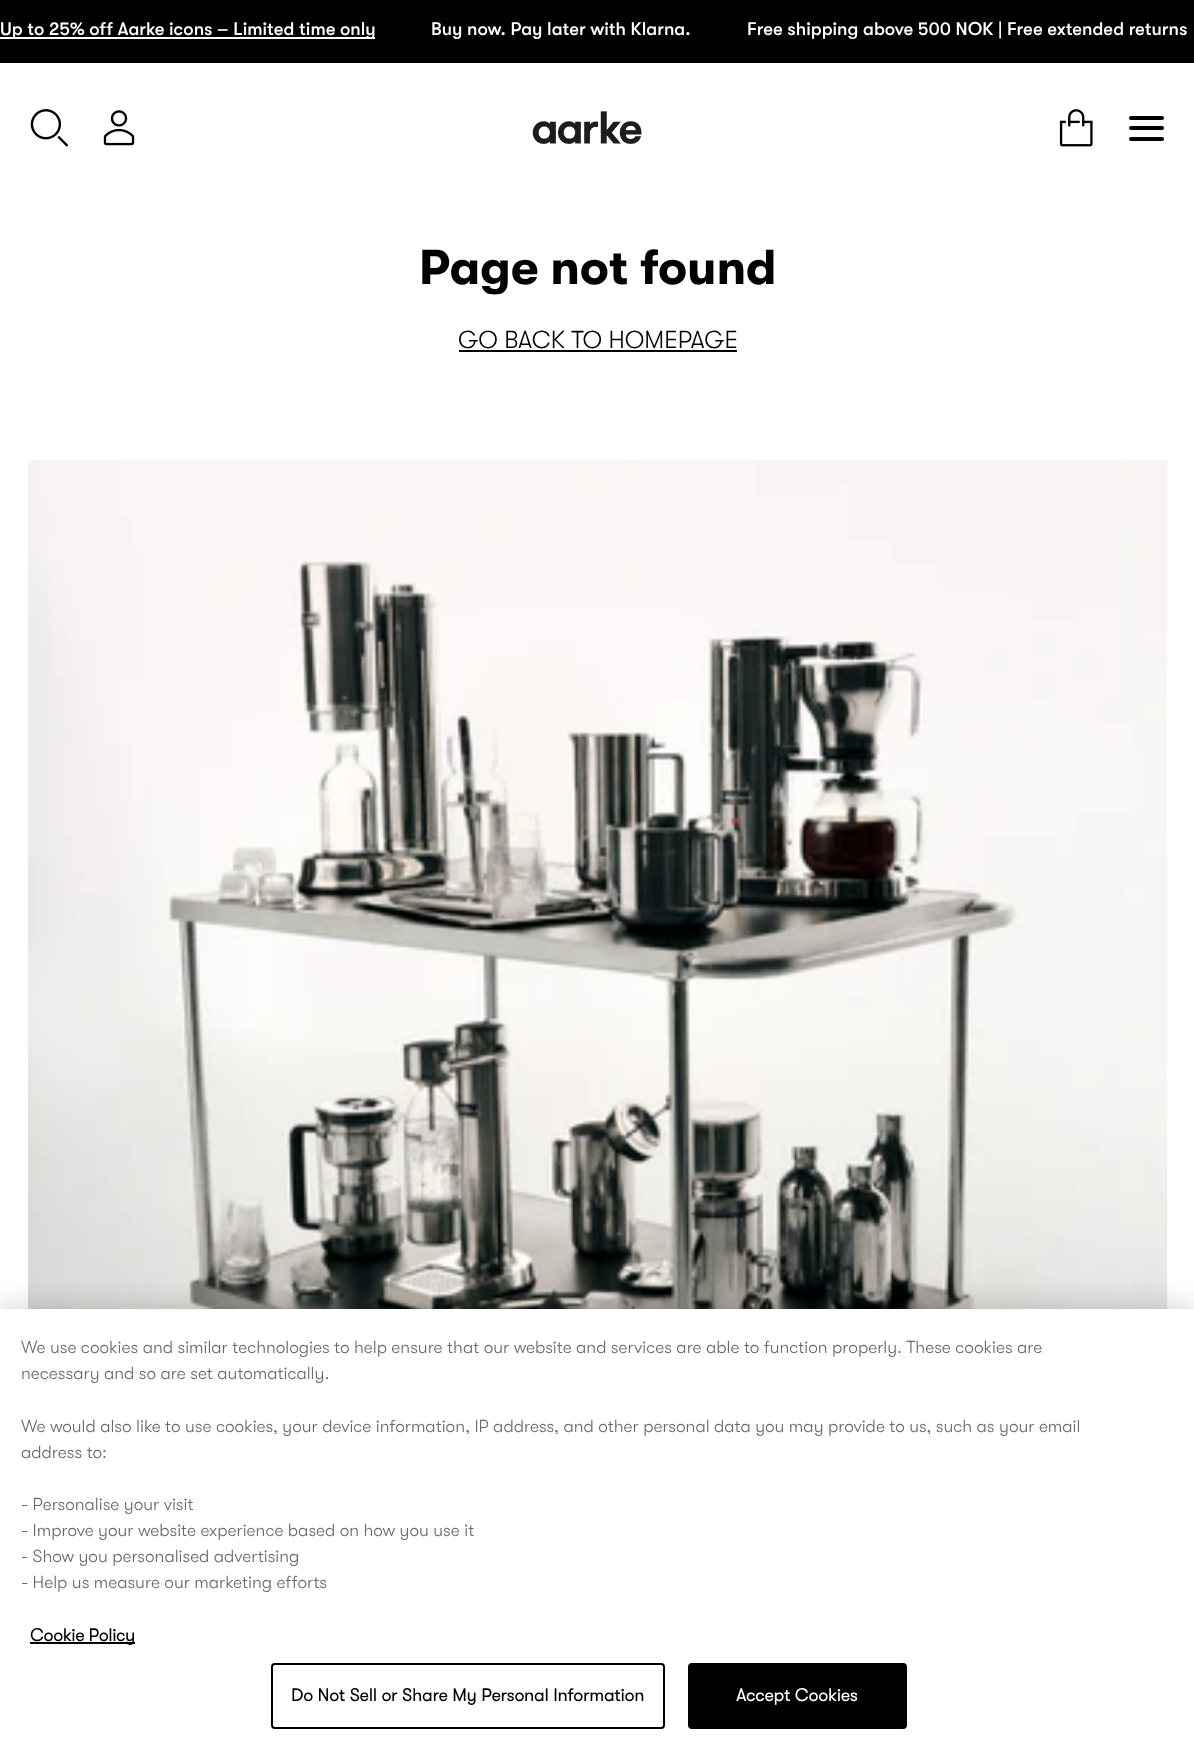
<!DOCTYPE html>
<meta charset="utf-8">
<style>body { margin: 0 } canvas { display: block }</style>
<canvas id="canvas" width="1194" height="1752"></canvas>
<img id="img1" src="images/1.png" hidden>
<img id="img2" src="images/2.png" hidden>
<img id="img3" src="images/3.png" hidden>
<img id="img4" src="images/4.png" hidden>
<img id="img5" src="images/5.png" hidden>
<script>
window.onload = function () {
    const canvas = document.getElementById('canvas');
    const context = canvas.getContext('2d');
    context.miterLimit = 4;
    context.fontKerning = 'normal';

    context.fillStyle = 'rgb(255, 255, 255)';
    context.fillRect(0, 0, 1194, 1752);
    context.fillStyle = 'rgb(0, 0, 0)';
    context.fillRect(0, 0, 1194, 63);
    context.fillStyle = 'rgb(255, 255, 255)';
    context.fillRect(0, 37, 375, 2);
    context.drawImage(document.getElementById('img1'), 30, 109, 38, 38);
    context.drawImage(document.getElementById('img2'), 103, 110, 32, 36);
    context.drawImage(document.getElementById('img3'), 532, 111, 110, 33);
    context.drawImage(document.getElementById('img4'), 1059, 109, 34, 38);
    context.fillStyle = 'rgb(0, 0, 0)';
    context.beginPath();
    context.roundRect(1129, 116, 35, 4, 2);
    context.fill();
    context.beginPath();
    context.roundRect(1129, 126, 35, 4, 2);
    context.fill();
    context.beginPath();
    context.roundRect(1129, 137, 35, 4, 2);
    context.fill();
    context.fillRect(459, 350, 278, 2);
    context.drawImage(document.getElementById('img5'), 28, 460, 1140, 849);
    context.fillStyle = 'rgba(0, 0, 0, 0.2)';
    context.filter = 'blur(16px)';
    context.beginPath();
    context.rect(0, 1309, 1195, 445);
    context.fill();
    context.filter = 'none';
    context.fillStyle = 'rgb(255, 255, 255)';
    context.fillRect(0, 1309, 1194, 443);
    context.fillStyle = 'rgb(0, 0, 0)';
    context.fillRect(30, 1642, 105, 2);
    context.beginPath();
    context.roundRect(272, 1664, 392, 64, 3);
    context.strokeStyle = 'rgb(0, 0, 0)';
    context.lineWidth = 2;
    context.stroke();
    context.beginPath();
    context.roundRect(689, 1664, 217, 64, 3);
    context.fill();
    context.stroke();
    context.font = '500 18.4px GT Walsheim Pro';
    context.fillStyle = 'rgb(255, 255, 255)';
    context.fillText('Up to 25% off Aarke icons – Limited time only', 0, 35);
    context.fillText('Buy now. Pay later with Klarna.', 431, 35);
    context.fillText('Free shipping above 500 NOK | Free extended returns', 747, 35);
    context.font = 'bold 49px GT Walsheim Pro';
    context.fillStyle = 'rgb(0, 0, 0)';
    context.fillText('Page not found', 419, 284);
    context.font = '300 24.5px GT Walsheim Pro';
    context.fillText('GO BACK TO HOMEPAGE', 458, 348);
    context.font = '300 17.43px GT Walsheim Pro';
    context.fillStyle = 'rgb(105, 105, 105)';
    context.fillText('We use cookies and similar technologies to help ensure that our website and services are able to function properly. These cookies are', 21, 1353);
    context.fillText('necessary and so are set automatically.', 21, 1379);
    context.fillText('We would also like to use cookies, your device information, IP address, and other personal data you may provide to us, such as your email', 21, 1432);
    context.fillText('address to:', 21, 1458);
    context.fillText('- Personalise your visit', 21, 1510);
    context.fillText('- Improve your website experience based on how you use it', 21, 1536);
    context.fillText('- Show you personalised advertising', 21, 1562);
    context.fillText('- Help us measure our marketing efforts', 21, 1588);
    context.font = 'bold 17.43px "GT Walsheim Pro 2"';
    context.fillStyle = 'rgb(0, 0, 0)';
    context.fillText('Cookie Policy', 30, 1641);
    context.letterSpacing = '0.15px';
    context.fillText('Do Not Sell or Share My Personal Information', 291, 1701);
    context.fillStyle = 'rgb(255, 255, 255)';
    context.fillText('Accept Cookies', 736, 1701);
};
</script>
